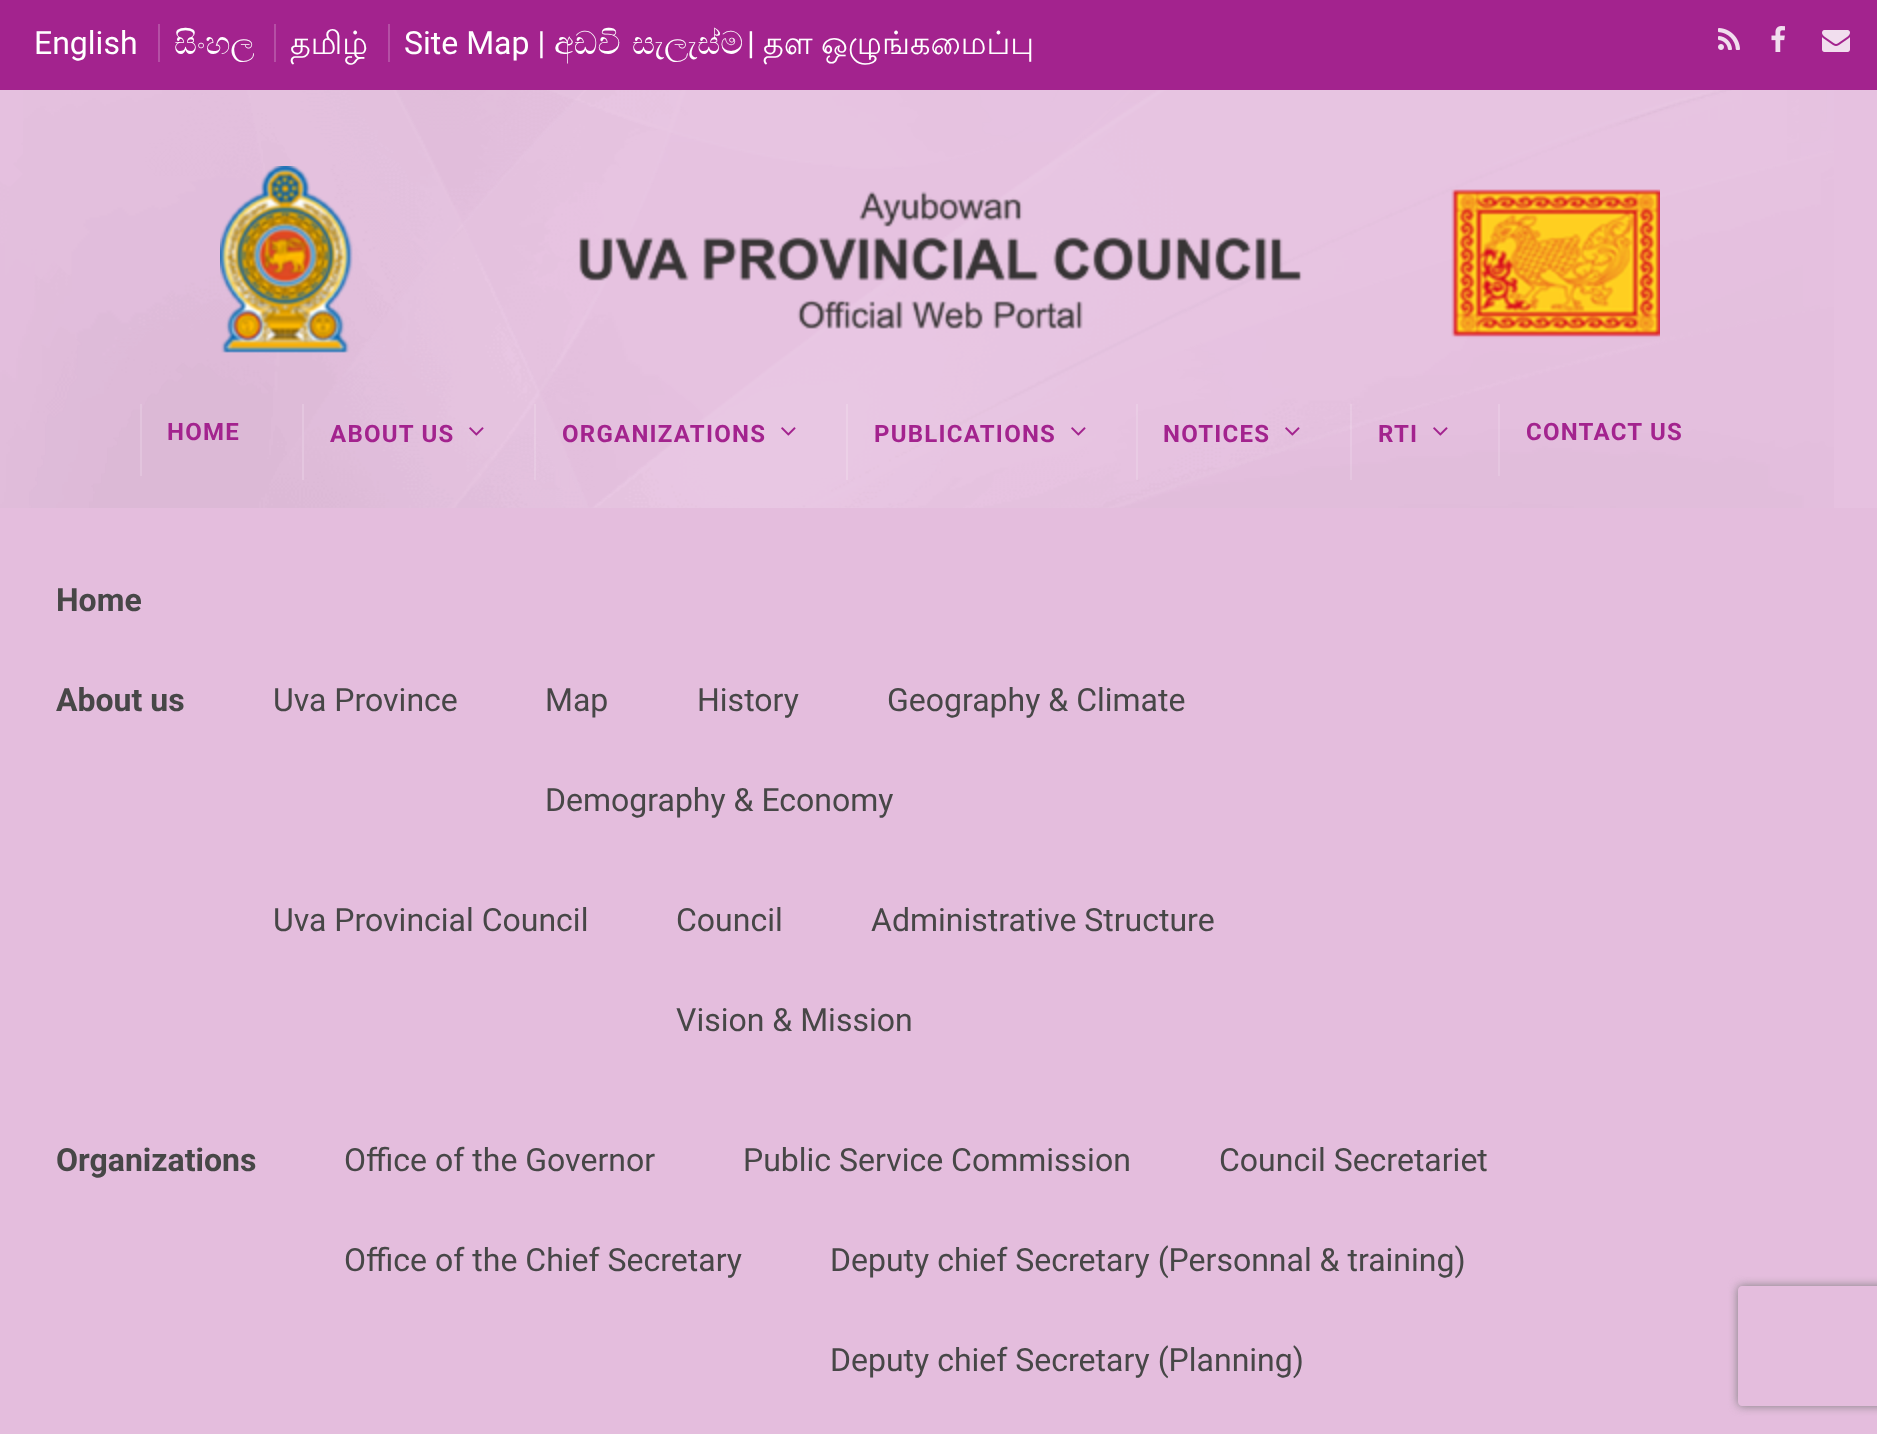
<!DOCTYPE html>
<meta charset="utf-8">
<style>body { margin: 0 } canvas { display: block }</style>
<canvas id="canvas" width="1877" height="1434"></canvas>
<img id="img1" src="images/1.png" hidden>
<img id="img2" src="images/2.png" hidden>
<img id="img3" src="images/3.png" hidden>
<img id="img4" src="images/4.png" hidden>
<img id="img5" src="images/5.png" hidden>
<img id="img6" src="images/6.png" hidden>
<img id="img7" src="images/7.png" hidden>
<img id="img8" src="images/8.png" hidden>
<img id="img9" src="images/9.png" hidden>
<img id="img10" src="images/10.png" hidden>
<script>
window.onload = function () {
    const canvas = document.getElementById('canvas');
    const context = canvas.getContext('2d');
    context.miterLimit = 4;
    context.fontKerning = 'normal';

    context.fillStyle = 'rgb(163, 35, 142)';
    context.fillRect(0, 0, 1877, 1434);
    context.fillStyle = 'rgb(181, 79, 165)';
    context.fillRect(158, 24, 2, 38);
    context.fillRect(274, 24, 2, 38);
    context.fillRect(388, 24, 2, 38);
    context.drawImage(document.getElementById('img1'), 1718, 28, 22, 22);
    context.drawImage(document.getElementById('img2'), 1771, 26, 14, 26);
    context.drawImage(document.getElementById('img3'), 1822, 30, 28, 22);
    context.fillStyle = 'rgb(230, 193, 224)';
    context.fillRect(0, 90, 1877, 418);
    context.fillStyle = 'rgb(234, 202, 229)';
    context.fillRect(1498, 404, 2, 72);
    context.drawImage(document.getElementById('img4'), 0, 90, 1834, 418);
    context.drawImage(document.getElementById('img5'), 220, 166, 1440, 187);
    context.fillStyle = 'rgb(226, 196, 221)';
    context.fillRect(140, 404, 2, 72);
    context.fillStyle = 'rgb(228, 198, 223)';
    context.fillRect(302, 404, 2, 76);
    context.drawImage(document.getElementById('img6'), 469, 427, 15, 9);
    context.fillStyle = 'rgba(255, 255, 255, 0.15)';
    context.fillRect(534, 404, 2, 76);
    context.drawImage(document.getElementById('img7'), 781, 427, 15, 9);
    context.fillStyle = 'rgb(236, 208, 231)';
    context.fillRect(846, 404, 2, 76);
    context.drawImage(document.getElementById('img8'), 1071, 427, 15, 9);
    context.fillStyle = 'rgba(255, 255, 255, 0.15)';
    context.fillRect(1136, 404, 2, 76);
    context.drawImage(document.getElementById('img9'), 1285, 427, 15, 9);
    context.fillRect(1350, 404, 2, 76);
    context.drawImage(document.getElementById('img10'), 1433, 427, 15, 9);
    context.fillStyle = 'rgb(228, 189, 221)';
    context.fillRect(0, 508, 1877, 926);
    context.save();
    context.beginPath();
    context.moveTo(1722, 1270);
    context.lineTo(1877, 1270);
    context.lineTo(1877, 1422);
    context.lineTo(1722, 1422);
    context.closePath();
    context.moveTo(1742, 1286);
    context.lineTo(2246, 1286);
    context.bezierCurveTo(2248, 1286, 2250, 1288, 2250, 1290);
    context.lineTo(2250, 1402);
    context.bezierCurveTo(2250, 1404, 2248, 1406, 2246, 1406);
    context.lineTo(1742, 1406);
    context.bezierCurveTo(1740, 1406, 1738, 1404, 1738, 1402);
    context.lineTo(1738, 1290);
    context.bezierCurveTo(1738, 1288, 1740, 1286, 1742, 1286);
    context.closePath();
    context.clip('evenodd');
    context.fillStyle = 'rgb(128, 128, 128)';
    context.filter = 'blur(5px)';
    context.beginPath();
    context.roundRect(1738, 1286, 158, 120, 4);
    context.fill();
    context.filter = 'none';
    context.restore();
    context.font = '32px Roboto';
    context.fillStyle = 'rgb(255, 255, 255)';
    context.fillText('English', 34, 54);
    context.font = '32px FreeSerif';
    context.fillText('සිංහල', 174, 54);
    context.font = '32px Lohit Tamil';
    context.fillText('தமிழ்', 290, 54);
    context.font = '32px Roboto';
    context.fillText('Site Map |', 404, 54);
    context.font = '32px FreeSerif';
    context.fillText('අඩවි', 554, 54);
    context.fillText('සැලැස්ම', 632, 54);
    context.font = '32px Roboto';
    context.fillText('|', 747, 54);
    context.font = '32px Lohit Tamil';
    context.fillText('தள', 763, 54);
    context.fillText('ஒழுங்கமைப்பு', 821, 54);
    context.letterSpacing = '1.25px';
    context.font = 'bold 24px Roboto';
    context.fillStyle = 'rgb(163, 35, 142)';
    context.fillText('HOME', 167, 440);
    context.fillText('ABOUT US', 330, 442);
    context.fillText('ORGANIZATIONS', 562, 442);
    context.fillText('PUBLICATIONS', 874, 442);
    context.fillText('NOTICES', 1163, 442);
    context.fillText('RTI', 1378, 442);
    context.fillText('CONTACT US', 1526, 440);
    context.letterSpacing = '0px';
    context.font = 'bold 32px Roboto';
    context.fillStyle = 'rgb(71, 71, 71)';
    context.fillText('Home', 56, 611);
    context.fillText('About us', 56, 711);
    context.font = '32px Roboto';
    context.fillText('Uva Province', 273, 711);
    context.fillText('Map', 545, 711);
    context.fillText('History', 697, 711);
    context.fillText('Geography & Climate', 887, 711);
    context.fillText('Demography & Economy', 545, 811);
    context.fillText('Uva Provincial Council', 273, 931);
    context.fillText('Council', 676, 931);
    context.fillText('Administrative Structure', 871, 931);
    context.fillText('Vision & Mission', 676, 1031);
    context.font = 'bold 32px Roboto';
    context.fillText('Organizations', 56, 1171);
    context.font = '32px Roboto';
    context.fillText('Office of the Governor', 344, 1171);
    context.fillText('Public Service Commission', 743, 1171);
    context.fillText('Council Secretariet', 1219, 1171);
    context.fillText('Office of the Chief Secretary', 344, 1271);
    context.fillText('Deputy chief Secretary (Personnal & training)', 830, 1271);
    context.fillText('Deputy chief Secretary (Planning)', 830, 1371);
};
</script>
